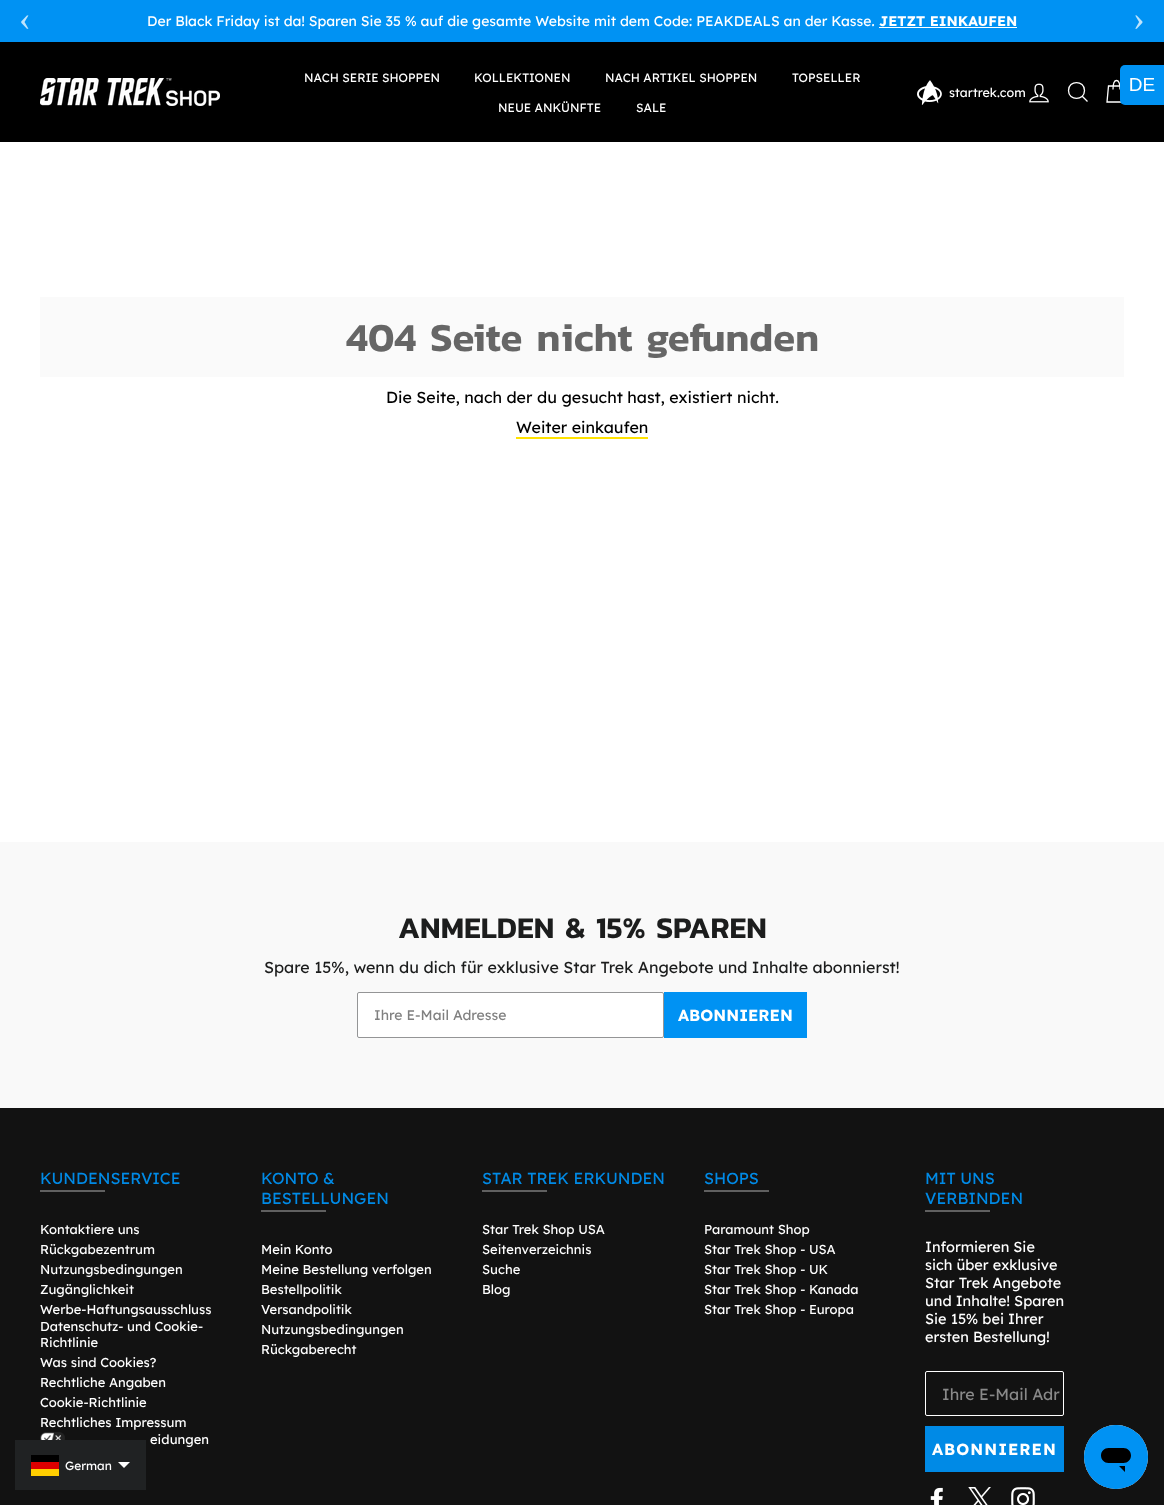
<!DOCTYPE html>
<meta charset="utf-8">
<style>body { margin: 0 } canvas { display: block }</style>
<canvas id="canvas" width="1164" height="1505"></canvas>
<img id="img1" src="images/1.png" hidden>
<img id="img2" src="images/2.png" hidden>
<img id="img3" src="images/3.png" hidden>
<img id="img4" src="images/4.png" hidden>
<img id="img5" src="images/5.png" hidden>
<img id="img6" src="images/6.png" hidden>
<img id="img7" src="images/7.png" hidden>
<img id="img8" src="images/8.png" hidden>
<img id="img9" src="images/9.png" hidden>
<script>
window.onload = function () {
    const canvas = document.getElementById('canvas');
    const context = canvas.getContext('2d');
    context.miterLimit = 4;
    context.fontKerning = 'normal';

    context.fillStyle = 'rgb(255, 255, 255)';
    context.fillRect(0, 0, 1164, 1505);
    context.fillStyle = 'rgb(0, 146, 243)';
    context.fillRect(0, 0, 1164, 42);
    context.fillStyle = 'rgb(255, 255, 255)';
    context.fillRect(879, 27, 138, 1);
    context.fillStyle = 'rgb(0, 0, 0)';
    context.fillRect(0, 42, 1164, 100);
    context.drawImage(document.getElementById('img1'), 40, 78, 180, 28);
    context.drawImage(document.getElementById('img2'), 917, 80, 25, 25);
    context.drawImage(document.getElementById('img3'), 1029, 83, 20, 20);
    context.beginPath();
    context.moveTo(1084.5, 90.5);
    context.bezierCurveTo(1084.5, 101, 1068.5, 101, 1068.5, 90.5);
    context.bezierCurveTo(1068.5, 80, 1084.5, 80, 1084.5, 90.5);
    context.closePath();
    context.moveTo(1087.5, 101.5);
    context.lineTo(1082.5, 96.5);
    context.strokeStyle = 'rgb(255, 255, 255)';
    context.lineWidth = 1.3;
    context.stroke();
    context.beginPath();
    context.moveTo(1113, 89.5);
    context.bezierCurveTo(1113, 77.5, 1120, 77.5, 1120, 89.5);
    context.moveTo(1108.5, 86);
    context.lineTo(1124.5, 86);
    context.lineTo(1126, 102);
    context.lineTo(1107, 102);
    context.closePath();
    context.stroke();
    context.fillStyle = 'rgb(250, 250, 250)';
    context.fillRect(40, 297, 1084, 80);
    context.fillStyle = 'rgb(255, 226, 0)';
    context.fillRect(516, 437, 132, 2);
    context.fillStyle = 'rgb(249, 249, 249)';
    context.fillRect(0, 842, 1164, 266);
    context.fillStyle = 'rgb(255, 255, 255)';
    context.beginPath();
    context.roundRect(357.5, 992.5, 306, 45, 1.5);
    context.fill();
    context.strokeStyle = 'rgb(148, 149, 150)';
    context.lineWidth = 1;
    context.stroke();
    context.fillStyle = 'rgb(0, 146, 243)';
    context.fillRect(664, 992, 143, 46);
    context.fillStyle = 'rgb(18, 18, 18)';
    context.fillRect(0, 1108, 1164, 397);
    context.fillStyle = 'rgb(96, 96, 96)';
    context.fillRect(40, 1190, 65, 2);
    context.drawImage(document.getElementById('img4'), 40, 1432, 25, 8);
    context.fillRect(261, 1210, 65, 2);
    context.fillRect(482, 1190, 65, 2);
    context.fillRect(704, 1190, 65, 2);
    context.fillRect(925, 1210, 65, 2);
    context.beginPath();
    context.roundRect(925.5, 1371.5, 138, 44, 1.5);
    context.strokeStyle = 'rgb(255, 255, 255)';
    context.stroke();
    context.fillStyle = 'rgb(0, 138, 230)';
    context.fillRect(925, 1426, 139, 46);
    context.drawImage(document.getElementById('img5'), 930, 1487, 13, 18);
    context.drawImage(document.getElementById('img6'), 968, 1487, 23, 18);
    context.drawImage(document.getElementById('img7'), 1011, 1487, 24, 18);
    context.drawImage(document.getElementById('img8'), 1120, 65, 44, 40);
    context.fillStyle = 'rgb(32, 34, 35)';
    context.fillRect(15, 1440, 131, 50);
    context.fillStyle = 'rgb(255, 206, 0)';
    context.fillRect(31, 1469, 28, 7);
    context.fillStyle = 'rgb(0, 0, 0)';
    context.fillRect(31, 1455, 28, 7);
    context.fillStyle = 'rgb(221, 0, 0)';
    context.fillRect(31, 1462, 28, 7);
    context.fillStyle = 'rgb(255, 255, 255)';
    context.beginPath();
    context.moveTo(118, 1462);
    context.lineTo(130, 1462);
    context.lineTo(124, 1468);
    context.closePath();
    context.fill();
    context.drawImage(document.getElementById('img9'), 1084, 1425, 64, 64);
    context.font = '35px Liberation Serif';
    context.fillStyle = 'rgb(191, 228, 252)';
    context.fillText('‹', 19, 30);
    context.font = '14px Lexend';
    context.fillStyle = 'rgb(255, 255, 255)';
    context.fillText('Der Black Friday ist da! Sparen Sie 35 % auf die gesamte Website mit dem Code: PEAKDEALS an der Kasse.', 147, 26);
    context.font = 'bold 14px Lexend';
    context.fillText('JETZT EINKAUFEN', 879, 26);
    context.font = '35px Liberation Serif';
    context.fillStyle = 'rgb(191, 228, 252)';
    context.fillText('›', 1133, 30);
    context.font = '12px Lexend';
    context.fillStyle = 'rgb(255, 255, 255)';
    context.fillText('NACH SERIE SHOPPEN', 304, 82);
    context.fillText('KOLLEKTIONEN', 474, 82);
    context.fillText('NACH ARTIKEL SHOPPEN', 605, 82);
    context.fillText('TOPSELLER', 792, 82);
    context.fillText('NEUE ANKÜNFTE', 498, 112);
    context.fillText('SALE', 636, 112);
    context.font = '12.5px Lexend';
    context.fillText('startrek.com', 949, 97);
    context.font = '600 40px Kanit';
    context.fillStyle = 'rgb(102, 102, 102)';
    context.fillText('404 Seite nicht gefunden', 346, 351);
    context.font = '16px Lexend';
    context.fillStyle = 'rgb(0, 0, 0)';
    context.fillText('Die Seite, nach der du gesucht hast, existiert nicht.', 386, 403);
    context.fillText('Weiter einkaufen', 516, 433);
    context.font = '600 30.4px Kanit';
    context.fillStyle = 'rgb(28, 29, 29)';
    context.fillText('ANMELDEN & 15% SPAREN', 398, 938);
    context.font = '16px Lexend';
    context.fillText('Spare 15%, wenn du dich für exklusive Star Trek Angebote und Inhalte abonnierst!', 264, 973);
    context.font = '14px Lexend';
    context.fillStyle = 'rgb(128, 128, 128)';
    context.fillText('Ihre E-Mail Adresse', 374, 1020);
    context.font = 'bold 16px Lexend';
    context.fillStyle = 'rgb(255, 255, 255)';
    context.fillText('ABONNIEREN', 678, 1021);
    context.font = '16px Lexend';
    context.fillStyle = 'rgb(0, 138, 230)';
    context.fillText('KUNDENSERVICE', 40, 1184);
    context.font = '13px Lexend';
    context.fillStyle = 'rgb(255, 255, 255)';
    context.fillText('Kontaktiere uns', 40, 1234);
    context.fillText('Rückgabezentrum', 40, 1254);
    context.fillText('Nutzungsbedingungen', 40, 1274);
    context.fillText('Zugänglichkeit', 40, 1294);
    context.fillText('Werbe-Haftungsausschluss', 40, 1314);
    context.fillText('Datenschutz- und Cookie-', 40, 1331);
    context.fillText('Richtlinie', 40, 1347);
    context.fillText('Was sind Cookies?', 40, 1367);
    context.fillText('Rechtliche Angaben', 40, 1387);
    context.fillText('Cookie-Richtlinie', 40, 1407);
    context.fillText('Rechtliches Impressum', 40, 1427);
    context.fillText('eidungen', 150, 1444);
    context.font = '16px Lexend';
    context.fillStyle = 'rgb(0, 138, 230)';
    context.fillText('KONTO &', 261, 1184);
    context.fillText('BESTELLUNGEN', 261, 1204);
    context.font = '13px Lexend';
    context.fillStyle = 'rgb(255, 255, 255)';
    context.fillText('Mein Konto', 261, 1254);
    context.fillText('Meine Bestellung verfolgen', 261, 1274);
    context.fillText('Bestellpolitik', 261, 1294);
    context.fillText('Versandpolitik', 261, 1314);
    context.fillText('Nutzungsbedingungen', 261, 1334);
    context.fillText('Rückgaberecht', 261, 1354);
    context.font = '16px Lexend';
    context.fillStyle = 'rgb(0, 138, 230)';
    context.fillText('STAR TREK ERKUNDEN', 482, 1184);
    context.font = '13px Lexend';
    context.fillStyle = 'rgb(255, 255, 255)';
    context.fillText('Star Trek Shop USA', 482, 1234);
    context.fillText('Seitenverzeichnis', 482, 1254);
    context.fillText('Suche', 482, 1274);
    context.fillText('Blog', 482, 1294);
    context.font = '16px Lexend';
    context.fillStyle = 'rgb(0, 138, 230)';
    context.fillText('SHOPS', 704, 1184);
    context.font = '13px Lexend';
    context.fillStyle = 'rgb(255, 255, 255)';
    context.fillText('Paramount Shop', 704, 1234);
    context.fillText('Star Trek Shop - USA', 704, 1254);
    context.fillText('Star Trek Shop - UK', 704, 1274);
    context.fillText('Star Trek Shop - Kanada', 704, 1294);
    context.fillText('Star Trek Shop - Europa', 704, 1314);
    context.font = '16px Lexend';
    context.fillStyle = 'rgb(0, 138, 230)';
    context.fillText('MIT UNS', 925, 1184);
    context.fillText('VERBINDEN', 925, 1204);
    context.font = '14.5px Lexend';
    context.fillStyle = 'rgb(255, 255, 255)';
    context.fillText('Informieren Sie', 925, 1252);
    context.fillText('sich über exklusive', 925, 1270);
    context.fillText('Star Trek Angebote', 925, 1288);
    context.fillText('und Inhalte! Sparen', 925, 1306);
    context.fillText('Sie 15% bei Ihrer', 925, 1324);
    context.fillText('ersten Bestellung!', 925, 1342);
    context.font = '16px Lexend';
    context.fillStyle = 'rgb(137, 137, 137)';
    context.fillText('Ihre E-Mail Adr', 942, 1400);
    context.letterSpacing = '1px';
    context.font = 'bold 16px Lexend';
    context.fillStyle = 'rgb(255, 255, 255)';
    context.fillText('ABONNIEREN', 932, 1455);
    context.letterSpacing = '0px';
    context.font = '12px Lexend';
    context.fillText('German', 65, 1470);
};
</script>
